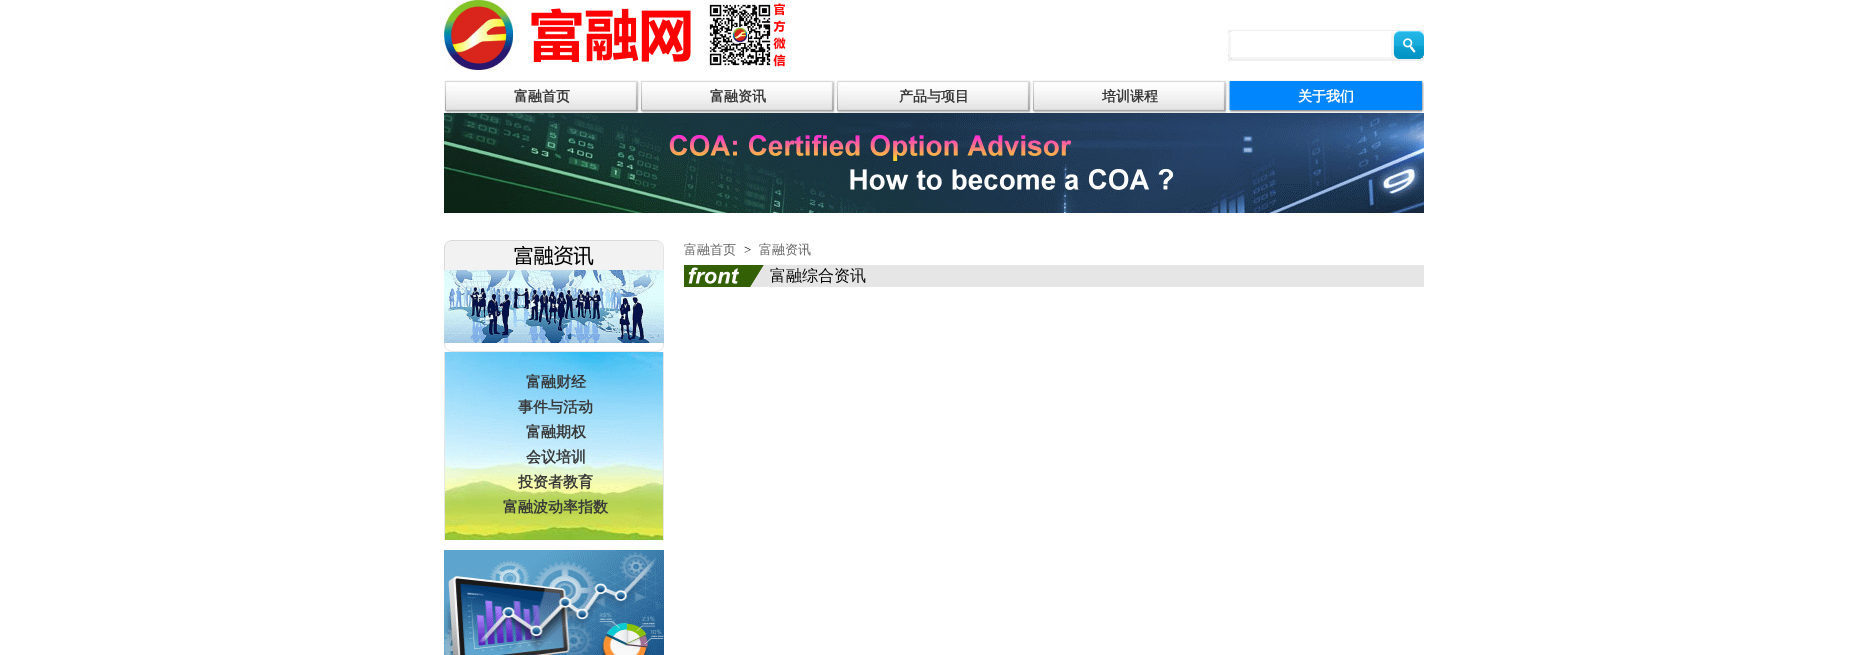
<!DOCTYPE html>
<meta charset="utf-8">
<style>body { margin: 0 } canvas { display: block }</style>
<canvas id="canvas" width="1867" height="655"></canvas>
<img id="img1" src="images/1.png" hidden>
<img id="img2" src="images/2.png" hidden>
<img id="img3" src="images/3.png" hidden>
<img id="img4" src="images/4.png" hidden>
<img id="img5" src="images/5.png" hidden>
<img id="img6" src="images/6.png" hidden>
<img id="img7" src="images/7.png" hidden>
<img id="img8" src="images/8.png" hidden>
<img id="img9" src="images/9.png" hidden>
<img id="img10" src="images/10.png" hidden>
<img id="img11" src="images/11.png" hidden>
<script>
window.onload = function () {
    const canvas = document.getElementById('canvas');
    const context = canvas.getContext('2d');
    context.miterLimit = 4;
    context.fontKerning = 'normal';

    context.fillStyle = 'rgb(255, 255, 255)';
    context.fillRect(0, 0, 1867, 655);
    context.drawImage(document.getElementById('img1'), 444, 0, 342, 70);
    context.fillStyle = 'rgb(239, 239, 239)';
    context.fillRect(1228, 30, 196, 31);
    context.drawImage(document.getElementById('img2'), 1228, 31, 196, 28);
    context.fillStyle = 'rgb(255, 255, 255)';
    context.fillRect(1231, 33, 160, 24);
    context.drawImage(document.getElementById('img3'), 444, 80, 196, 33);
    context.drawImage(document.getElementById('img3'), 640, 80, 196, 33);
    context.drawImage(document.getElementById('img3'), 836, 80, 196, 33);
    context.drawImage(document.getElementById('img3'), 1032, 80, 196, 33);
    context.drawImage(document.getElementById('img4'), 1228, 80, 196, 33);
    context.drawImage(document.getElementById('img5'), 444, 113, 980, 100);
    context.fillStyle = 'rgb(230, 230, 230)';
    context.fillRect(768, 265, 656, 22);
    context.drawImage(document.getElementById('img6'), 684, 265, 60, 22);
    context.drawImage(document.getElementById('img7'), 744, 265, 24, 22);
    context.drawImage(document.getElementById('img8'), 444, 240, 220, 103);
    context.drawImage(document.getElementById('img9'), 444, 343, 220, 9);
    context.drawImage(document.getElementById('img10'), 445, 352, 218, 188);
    context.fillRect(663, 352, 1, 188);
    context.fillRect(444, 352, 1, 188);
    context.drawImage(document.getElementById('img11'), 444, 550, 220, 105);
    context.font = 'bold 14px WenQuanYi Zen Hei';
    context.fillStyle = 'rgb(57, 57, 57)';
    context.fillText('富融首页', 514, 101);
    context.fillText('富融资讯', 710, 101);
    context.fillText('产品与项目', 899, 101);
    context.fillText('培训课程', 1102, 101);
    context.fillStyle = 'rgb(255, 255, 255)';
    context.fillText('关于我们', 1298, 101);
    context.font = '500 13px WenQuanYi Zen Hei';
    context.fillStyle = 'rgb(102, 102, 102)';
    context.fillText('富融首页', 684, 254);
    context.font = '13px Liberation Serif';
    context.fillStyle = 'rgb(0, 0, 0)';
    context.fillText('>', 744, 254);
    context.font = '500 13px WenQuanYi Zen Hei';
    context.fillStyle = 'rgb(102, 102, 102)';
    context.fillText('富融资讯', 759, 254);
    context.font = '500 16px WenQuanYi Zen Hei';
    context.fillStyle = 'rgb(0, 0, 0)';
    context.fillText('富融综合资讯', 770, 281);
    context.font = 'bold 15px WenQuanYi Zen Hei';
    context.fillStyle = 'rgb(57, 57, 57)';
    context.fillText('富融财经', 526, 387);
    context.fillText('事件与活动', 518, 412);
    context.fillText('富融期权', 526, 437);
    context.fillText('会议培训', 526, 462);
    context.fillText('投资者教育', 518, 487);
    context.fillText('富融波动率指数', 503, 512);
};
</script>
